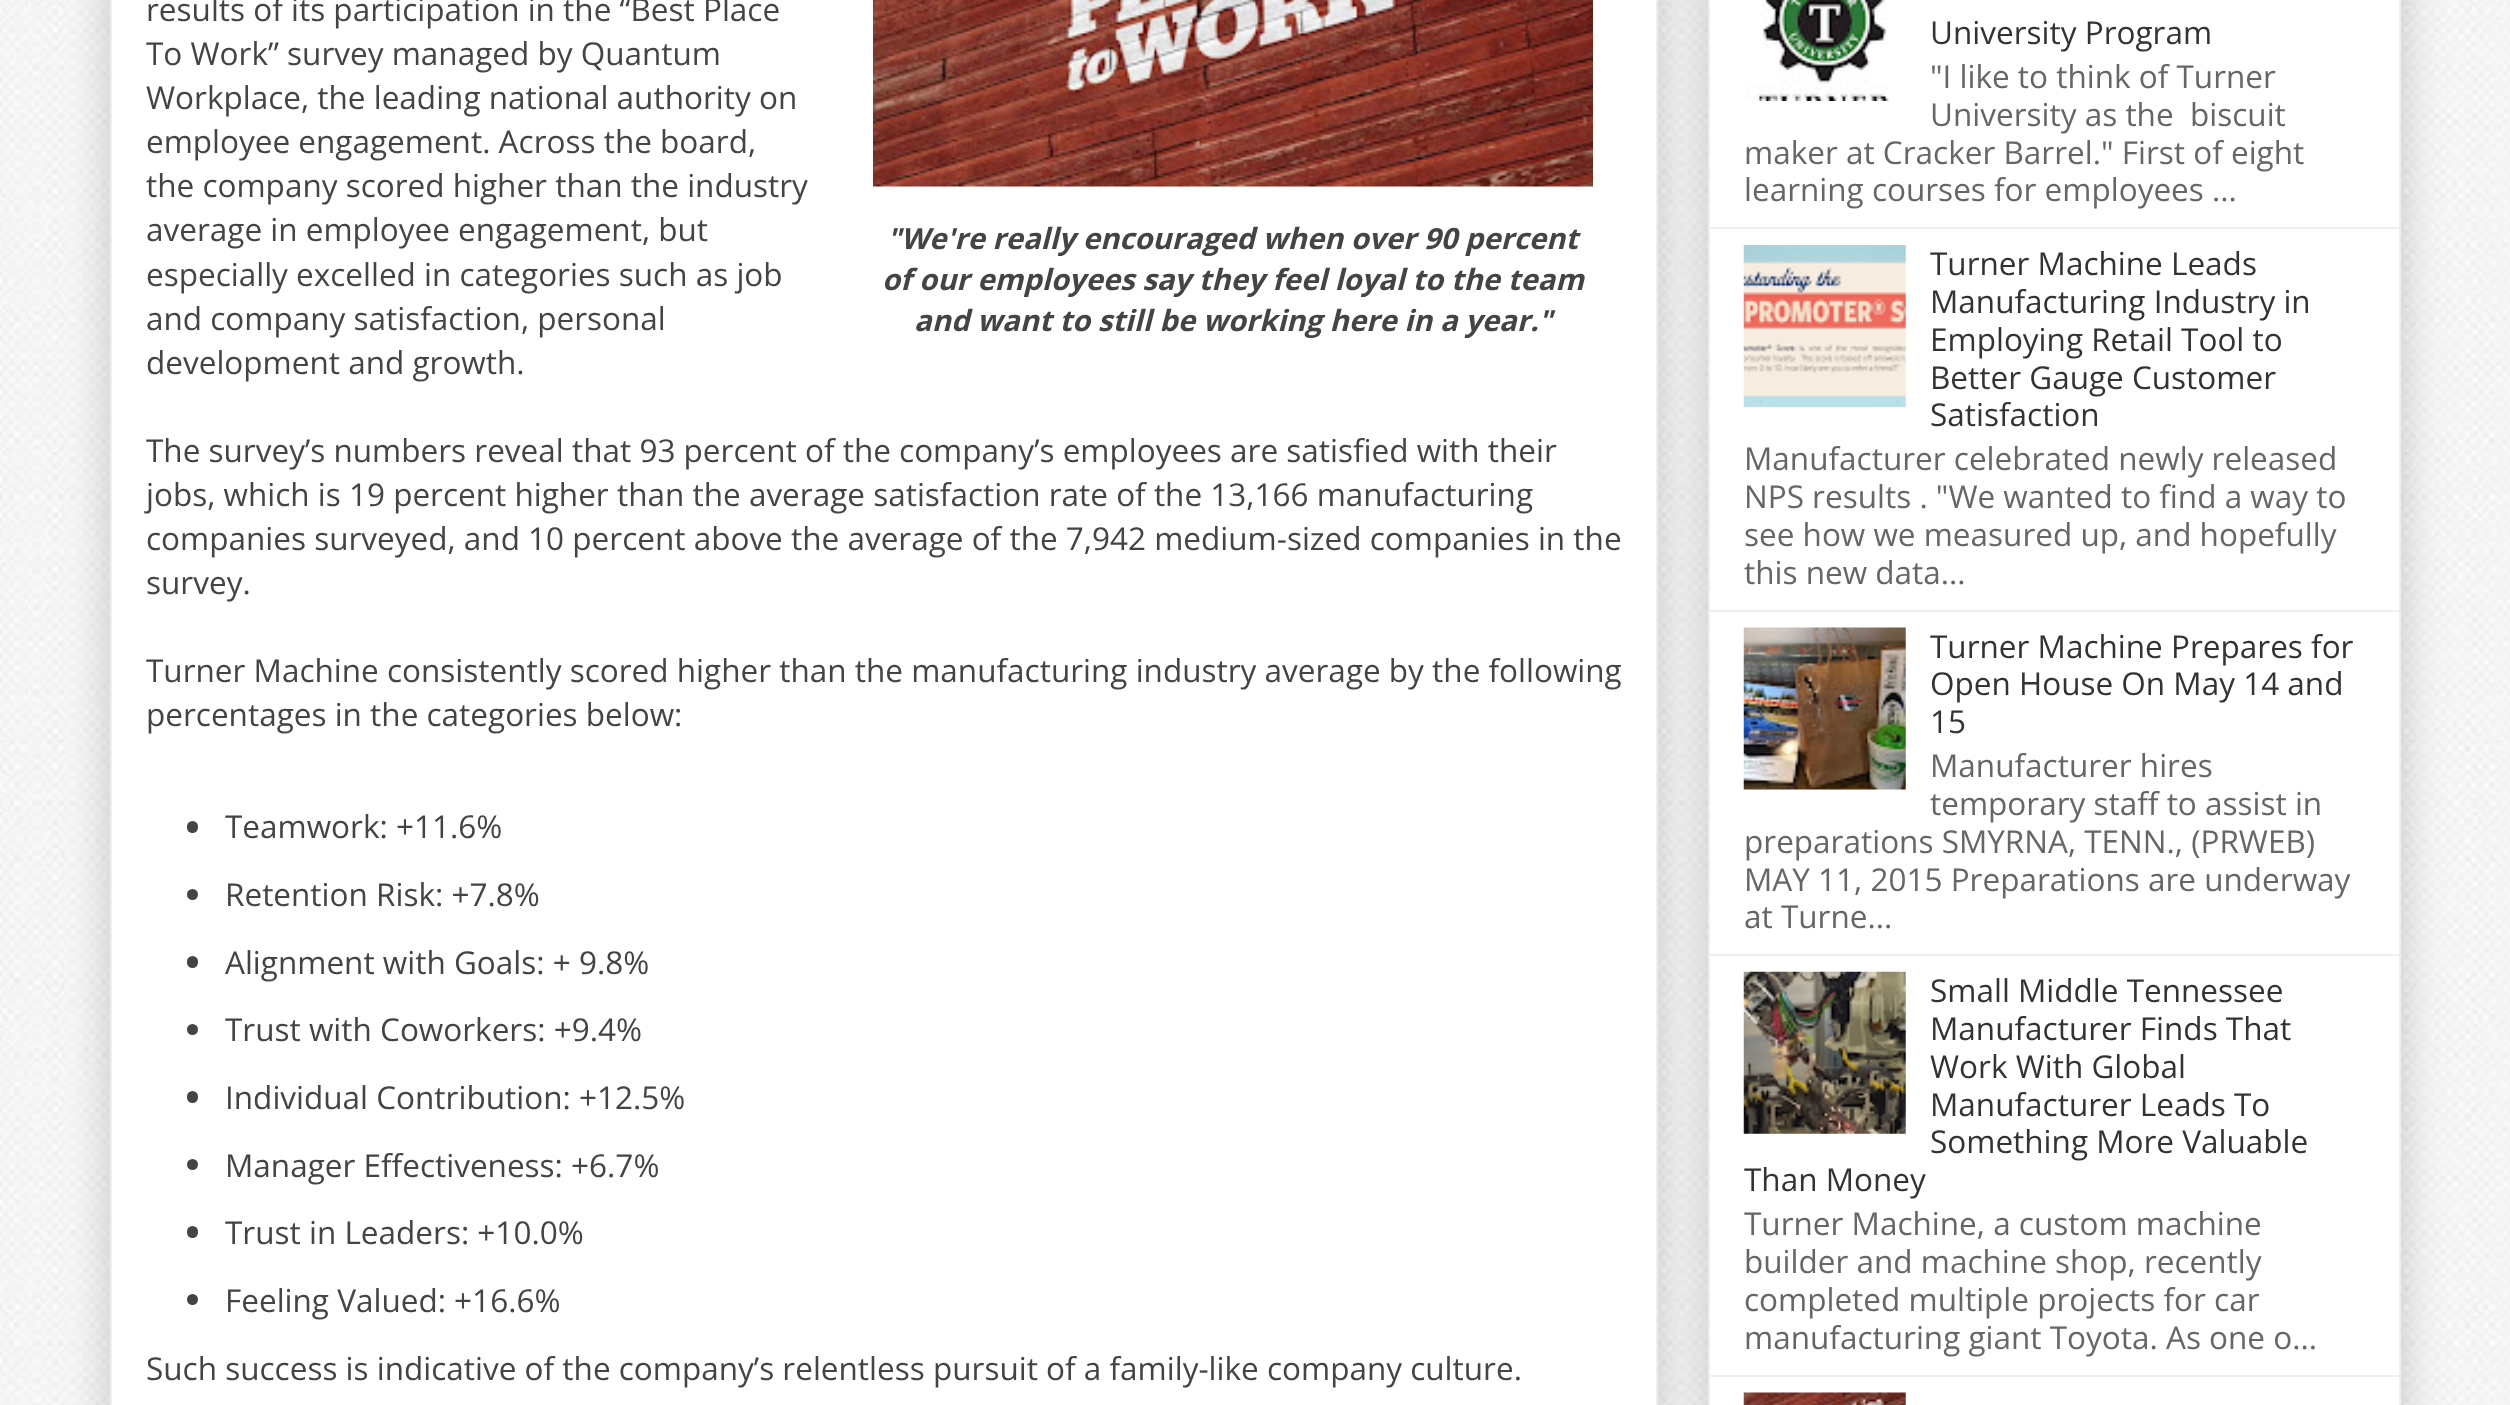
<!DOCTYPE html>
<meta charset="utf-8">
<style>body { margin: 0 } canvas { display: block }</style>
<canvas id="canvas" width="2510" height="1405"></canvas>
<img id="img1" src="images/1.png" hidden>
<img id="img2" src="images/2.png" hidden>
<img id="img3" src="images/3.png" hidden>
<img id="img4" src="images/4.png" hidden>
<img id="img5" src="images/5.png" hidden>
<img id="img6" src="images/6.png" hidden>
<img id="img7" src="images/7.png" hidden>
<script>
window.onload = function () {
    const canvas = document.getElementById('canvas');
    const context = canvas.getContext('2d');
    context.miterLimit = 4;
    context.fontKerning = 'normal';

    context.fillStyle = 'rgb(255, 255, 255)';
    context.fillRect(0, 0, 2510, 1405);
    context.drawImage(document.getElementById('img1'), 0, 0, 2510, 1405);
    context.fillStyle = 'rgba(0, 0, 0, 0.2)';
    context.filter = 'blur(22.5px)';
    context.beginPath();
    context.rect(110, -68, 1548, 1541);
    context.fill();
    context.filter = 'none';
    context.fillStyle = 'rgb(255, 255, 255)';
    context.beginPath();
    context.rect(111, -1, 1546, 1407);
    context.fill();
    context.strokeStyle = 'rgb(238, 238, 238)';
    context.lineWidth = 2;
    context.stroke();
    context.drawImage(document.getElementById('img2'), 873, 0, 720, 187);
    context.fillStyle = 'rgb(68, 68, 68)';
    context.beginPath();
    context.roundRect(187, 821, 11, 12, 5.5);
    context.fill();
    context.beginPath();
    context.arc(192.5, 894.5, 5.5, 0, 2 * Math.PI);
    context.fill();
    context.beginPath();
    context.roundRect(187, 956, 11, 12, 5.5);
    context.fill();
    context.beginPath();
    context.arc(192.5, 1029.5, 5.5, 0, 2 * Math.PI);
    context.fill();
    context.beginPath();
    context.roundRect(187, 1091, 11, 12, 5.5);
    context.fill();
    context.beginPath();
    context.arc(192.5, 1164.5, 5.5, 0, 2 * Math.PI);
    context.fill();
    context.beginPath();
    context.roundRect(187, 1226, 11, 12, 5.5);
    context.fill();
    context.beginPath();
    context.arc(192.5, 1299.5, 5.5, 0, 2 * Math.PI);
    context.fill();
    context.fillStyle = 'rgba(0, 0, 0, 0.2)';
    context.filter = 'blur(22.5px)';
    context.beginPath();
    context.rect(1708, -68, 693, 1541);
    context.fill();
    context.filter = 'none';
    context.fillStyle = 'rgb(255, 255, 255)';
    context.beginPath();
    context.rect(1709, -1, 691, 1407);
    context.fill();
    context.stroke();
    context.drawImage(document.getElementById('img3'), 1744, 0, 145, 101);
    context.fillStyle = 'rgb(238, 238, 238)';
    context.fillRect(1710, 227, 689, 2);
    context.drawImage(document.getElementById('img4'), 1743, 245, 163, 162);
    context.fillRect(1710, 610, 689, 2);
    context.drawImage(document.getElementById('img5'), 1743, 627, 163, 163);
    context.fillRect(1710, 954, 689, 2);
    context.drawImage(document.getElementById('img6'), 1743, 971, 163, 163);
    context.fillRect(1710, 1375, 689, 2);
    context.drawImage(document.getElementById('img7'), 1743, 1392, 163, 13);
    context.font = '31.5px Open Sans';
    context.fillStyle = 'rgb(68, 68, 68)';
    context.fillText('results of its participation in the “Best Place', 146, 21);
    context.fillText('To Work” survey managed by Quantum', 146, 65);
    context.fillText('Workplace, the leading national authority on', 146, 109);
    context.fillText('employee engagement. Across the board,', 146, 153);
    context.fillText('the company scored higher than the industry', 146, 197);
    context.fillText('average in employee engagement, but', 146, 241);
    context.font = 'italic bold 29.25px Open Sans';
    context.fillText('"We\'re really encouraged when over 90 percent', 887, 249);
    context.fillText('of our employees say they feel loyal to the team', 882, 290);
    context.fillText('and want to still be working here in a year."', 914, 331);
    context.font = '31.5px Open Sans';
    context.fillText('especially excelled in categories such as job', 146, 286);
    context.fillText('and company satisfaction, personal', 146, 330);
    context.fillText('development and growth.', 146, 374);
    context.fillText('The survey’s numbers reveal that 93 percent of the company’s employees are satisfied with their', 146, 462);
    context.fillText('jobs, which is 19 percent higher than the average satisfaction rate of the 13,166 manufacturing', 146, 506);
    context.fillText('companies surveyed, and 10 percent above the average of the 7,942 medium-sized companies in the', 146, 550);
    context.fillText('survey.', 146, 594);
    context.fillText('Turner Machine consistently scored higher than the manufacturing industry average by the following', 146, 682);
    context.fillText('percentages in the categories below:', 146, 726);
    context.fillText('Teamwork: +11.6%', 225, 838);
    context.fillText('Retention Risk: +7.8%', 225, 906);
    context.fillText('Alignment with Goals: + 9.8%', 225, 974);
    context.fillText('Trust with Coworkers: +9.4%', 225, 1041);
    context.fillText('Individual Contribution: +12.5%', 225, 1109);
    context.fillText('Manager Effectiveness: +6.7%', 225, 1177);
    context.fillText('Trust in Leaders: +10.0%', 225, 1244);
    context.fillText('Feeling Valued: +16.6%', 225, 1312);
    context.fillText('Such success is indicative of the company’s relentless pursuit of a family-like company culture.', 146, 1380);
    context.fillStyle = 'rgb(51, 51, 51)';
    context.fillText('University Program', 1930, 44);
    context.fillStyle = 'rgb(102, 102, 102)';
    context.fillText('"I like to think of Turner', 1930, 88);
    context.fillText('University as the  biscuit', 1930, 126);
    context.fillText('maker at Cracker Barrel." First of eight', 1744, 164);
    context.fillText('learning courses for employees ...', 1744, 201);
    context.fillStyle = 'rgb(51, 51, 51)';
    context.fillText('Turner Machine Leads', 1930, 275);
    context.fillText('Manufacturing Industry in', 1930, 313);
    context.fillText('Employing Retail Tool to', 1930, 351);
    context.fillText('Better Gauge Customer', 1930, 389);
    context.fillText('Satisfaction', 1930, 426);
    context.fillStyle = 'rgb(102, 102, 102)';
    context.fillText('Manufacturer celebrated newly released', 1744, 470);
    context.fillText('NPS results . "We wanted to find a way to', 1744, 508);
    context.fillText('see how we measured up, and hopefully', 1744, 546);
    context.fillText('this new data...', 1744, 584);
    context.fillStyle = 'rgb(51, 51, 51)';
    context.fillText('Turner Machine Prepares for', 1930, 658);
    context.fillText('Open House On May 14 and', 1930, 695);
    context.fillText('15', 1930, 733);
    context.fillStyle = 'rgb(102, 102, 102)';
    context.fillText('Manufacturer hires', 1930, 777);
    context.fillText('temporary staff to assist in', 1930, 815);
    context.fillText('preparations SMYRNA, TENN., (PRWEB)', 1744, 853);
    context.fillText('MAY 11, 2015 Preparations are underway', 1744, 891);
    context.fillText('at Turne...', 1744, 928);
    context.fillStyle = 'rgb(51, 51, 51)';
    context.fillText('Small Middle Tennessee', 1930, 1002);
    context.fillText('Manufacturer Finds That', 1930, 1040);
    context.fillText('Work With Global', 1930, 1078);
    context.fillText('Manufacturer Leads To', 1930, 1116);
    context.fillText('Something More Valuable', 1930, 1153);
    context.fillText('Than Money', 1744, 1191);
    context.fillStyle = 'rgb(102, 102, 102)';
    context.fillText('Turner Machine, a custom machine', 1744, 1235);
    context.fillText('builder and machine shop, recently', 1744, 1273);
    context.fillText('completed multiple projects for car', 1744, 1311);
    context.fillText('manufacturing giant Toyota. As one o...', 1744, 1349);
};
</script>
